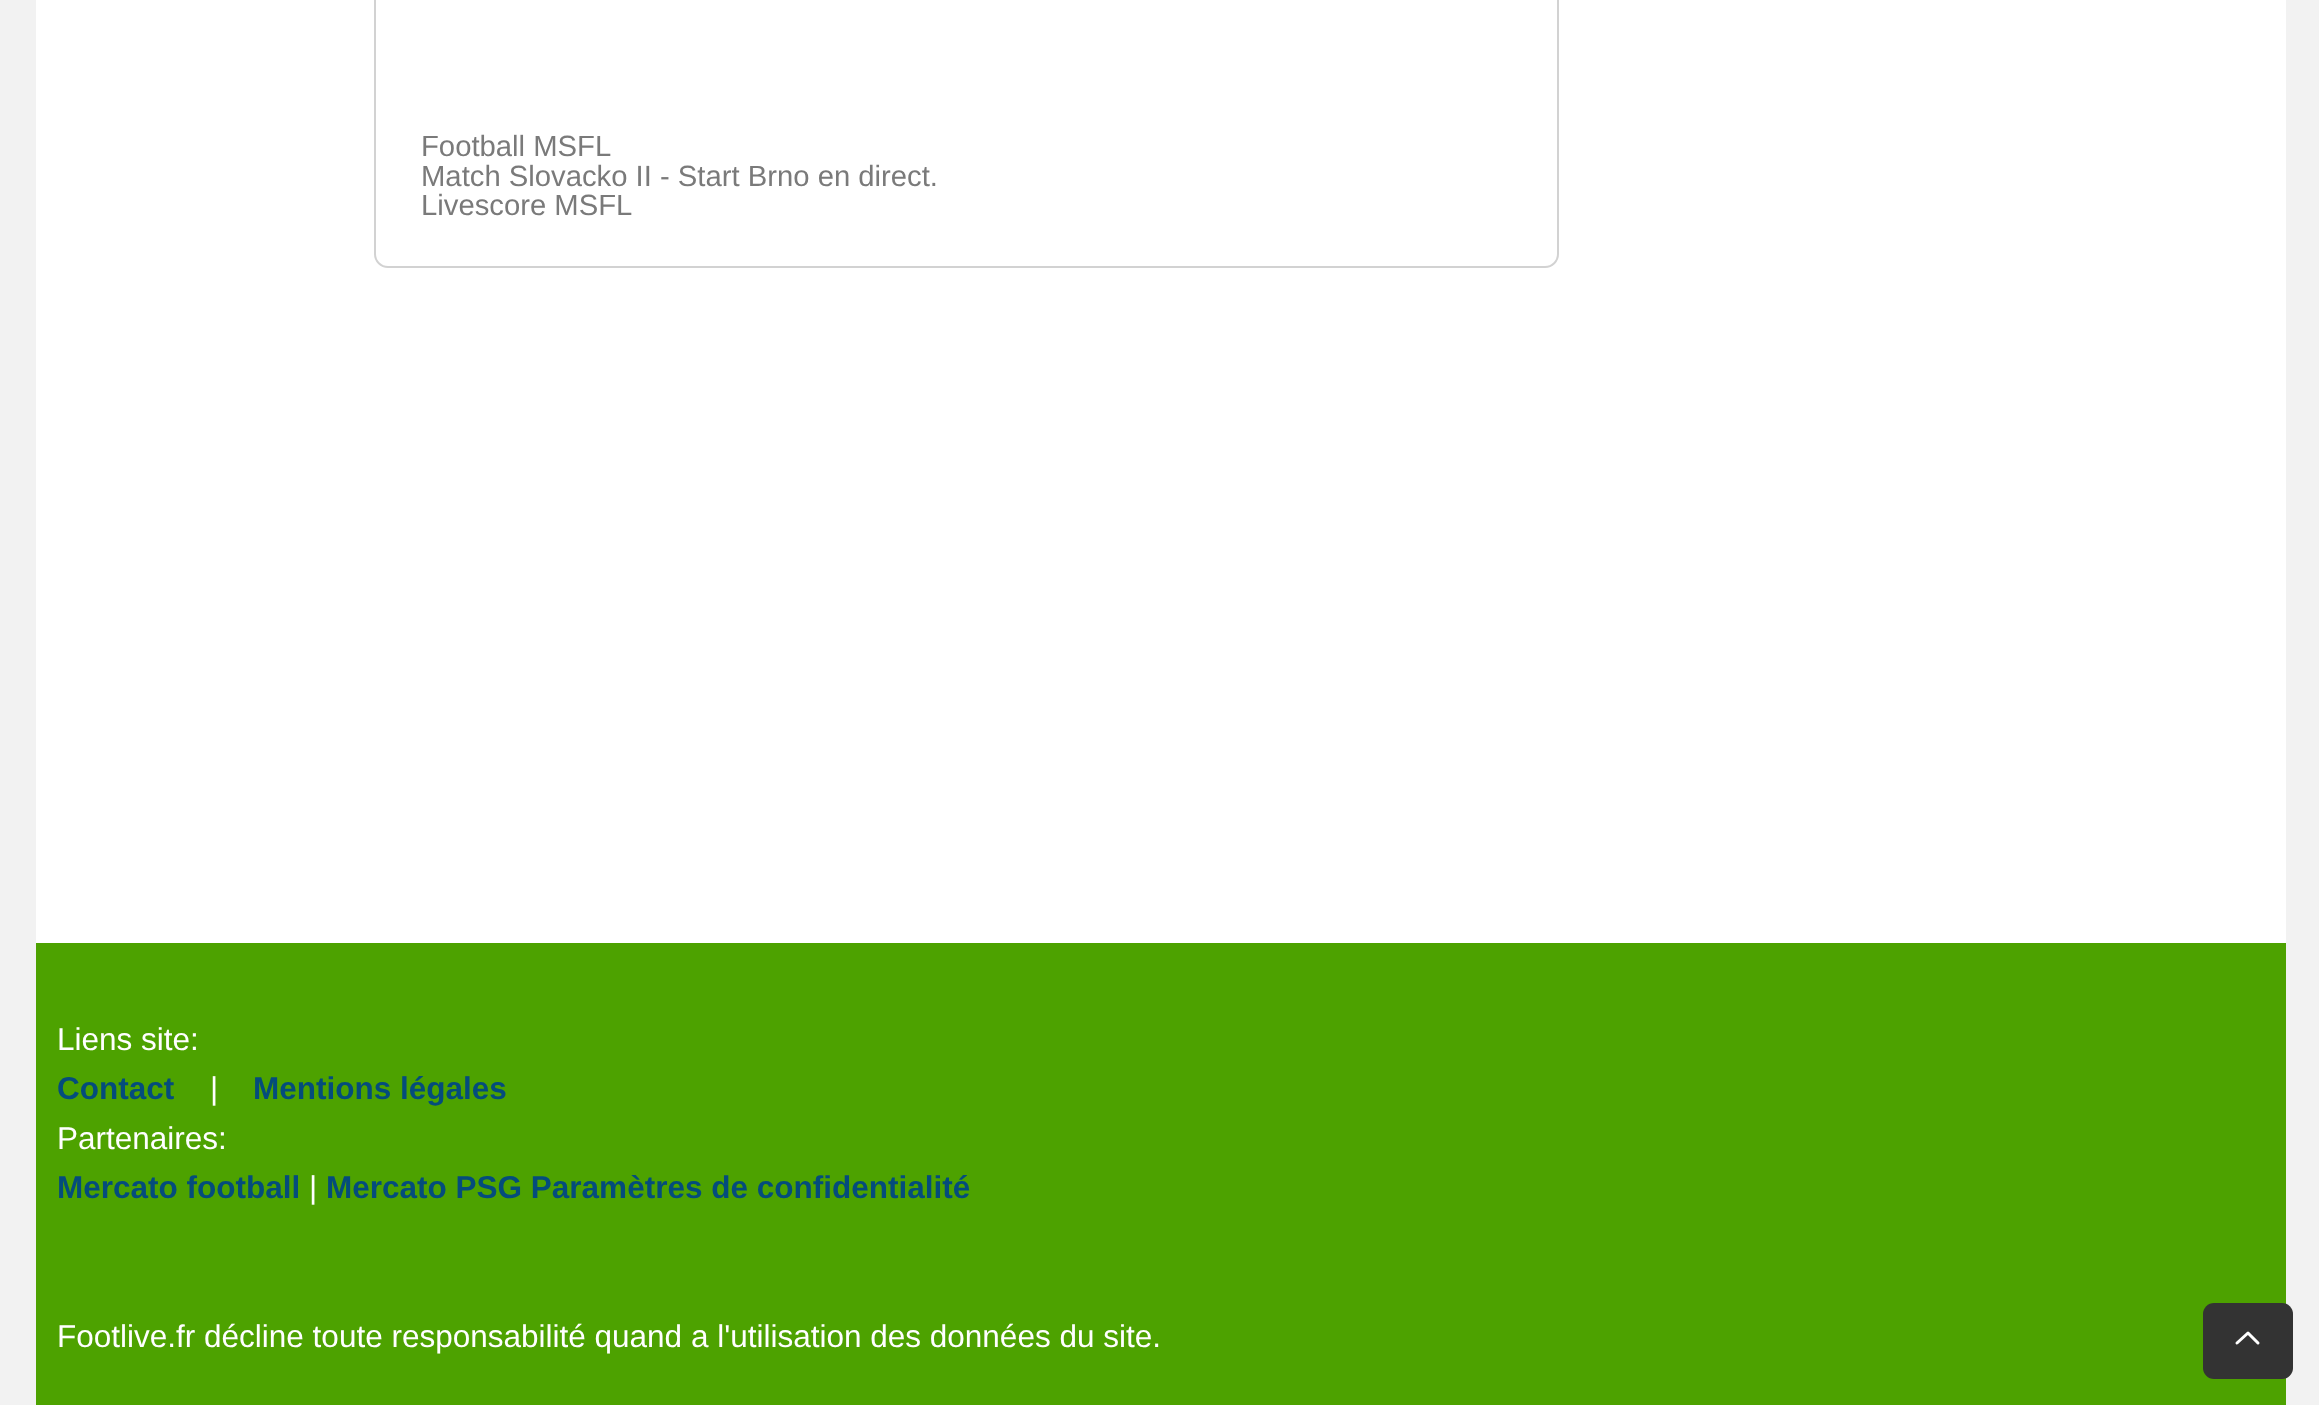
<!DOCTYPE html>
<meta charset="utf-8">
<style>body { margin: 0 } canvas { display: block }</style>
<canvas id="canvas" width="2319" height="1405"></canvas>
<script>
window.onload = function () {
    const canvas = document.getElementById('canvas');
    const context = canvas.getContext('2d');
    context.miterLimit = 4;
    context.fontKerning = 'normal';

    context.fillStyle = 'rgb(242, 242, 242)';
    context.fillRect(0, 0, 2319, 1405);
    context.fillStyle = 'rgb(255, 255, 255)';
    context.fillRect(36, 0, 2250, 943);
    context.beginPath();
    context.roundRect(375, -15, 1183, 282, 13);
    context.strokeStyle = 'rgb(210, 210, 210)';
    context.lineWidth = 2;
    context.stroke();
    context.fillStyle = 'rgb(77, 162, 0)';
    context.fillRect(36, 943, 2250, 462);
    context.fillStyle = 'rgb(51, 51, 51)';
    context.beginPath();
    context.roundRect(2203, 1303, 90, 76, 11);
    context.fill();
    context.beginPath();
    context.moveTo(2237, 1343);
    context.lineTo(2248, 1333);
    context.lineTo(2258, 1343);
    context.strokeStyle = 'rgb(255, 255, 255)';
    context.lineWidth = 3;
    context.lineCap = 'round';
    context.lineJoin = 'round';
    context.stroke();
    context.font = '29.25px Liberation Sans';
    context.fillStyle = 'rgb(122, 122, 122)';
    context.fillText('Football MSFL', 421, 156);
    context.fillText('Match Slovacko II - Start Brno en direct.', 421, 186);
    context.fillText('Livescore MSFL', 421, 215);
    context.font = '31.5px Liberation Sans';
    context.fillStyle = 'rgb(255, 255, 255)';
    context.fillText('Liens site:', 57, 1050);
    context.font = 'bold 31.5px Liberation Sans';
    context.fillStyle = 'rgb(4, 76, 124)';
    context.fillText('Contact', 57, 1099);
    context.font = '31.5px Liberation Sans';
    context.fillStyle = 'rgb(255, 255, 255)';
    context.fillText('|', 210, 1099);
    context.font = 'bold 31.5px Liberation Sans';
    context.fillStyle = 'rgb(4, 76, 124)';
    context.fillText('Mentions légales', 253, 1099);
    context.font = '31.5px Liberation Sans';
    context.fillStyle = 'rgb(255, 255, 255)';
    context.fillText('Partenaires:', 57, 1149);
    context.font = 'bold 31.5px Liberation Sans';
    context.fillStyle = 'rgb(4, 76, 124)';
    context.fillText('Mercato football', 57, 1198);
    context.font = '31.5px Liberation Sans';
    context.fillStyle = 'rgb(255, 255, 255)';
    context.fillText('|', 309, 1198);
    context.font = 'bold 31.5px Liberation Sans';
    context.fillStyle = 'rgb(4, 76, 124)';
    context.fillText('Mercato PSG Paramètres de confidentialité', 326, 1198);
    context.font = '31.5px Liberation Sans';
    context.fillStyle = 'rgb(255, 255, 255)';
    context.fillText('Footlive.fr décline toute responsabilité quand a l\'utilisation des données du site.', 57, 1347);
};
</script>
